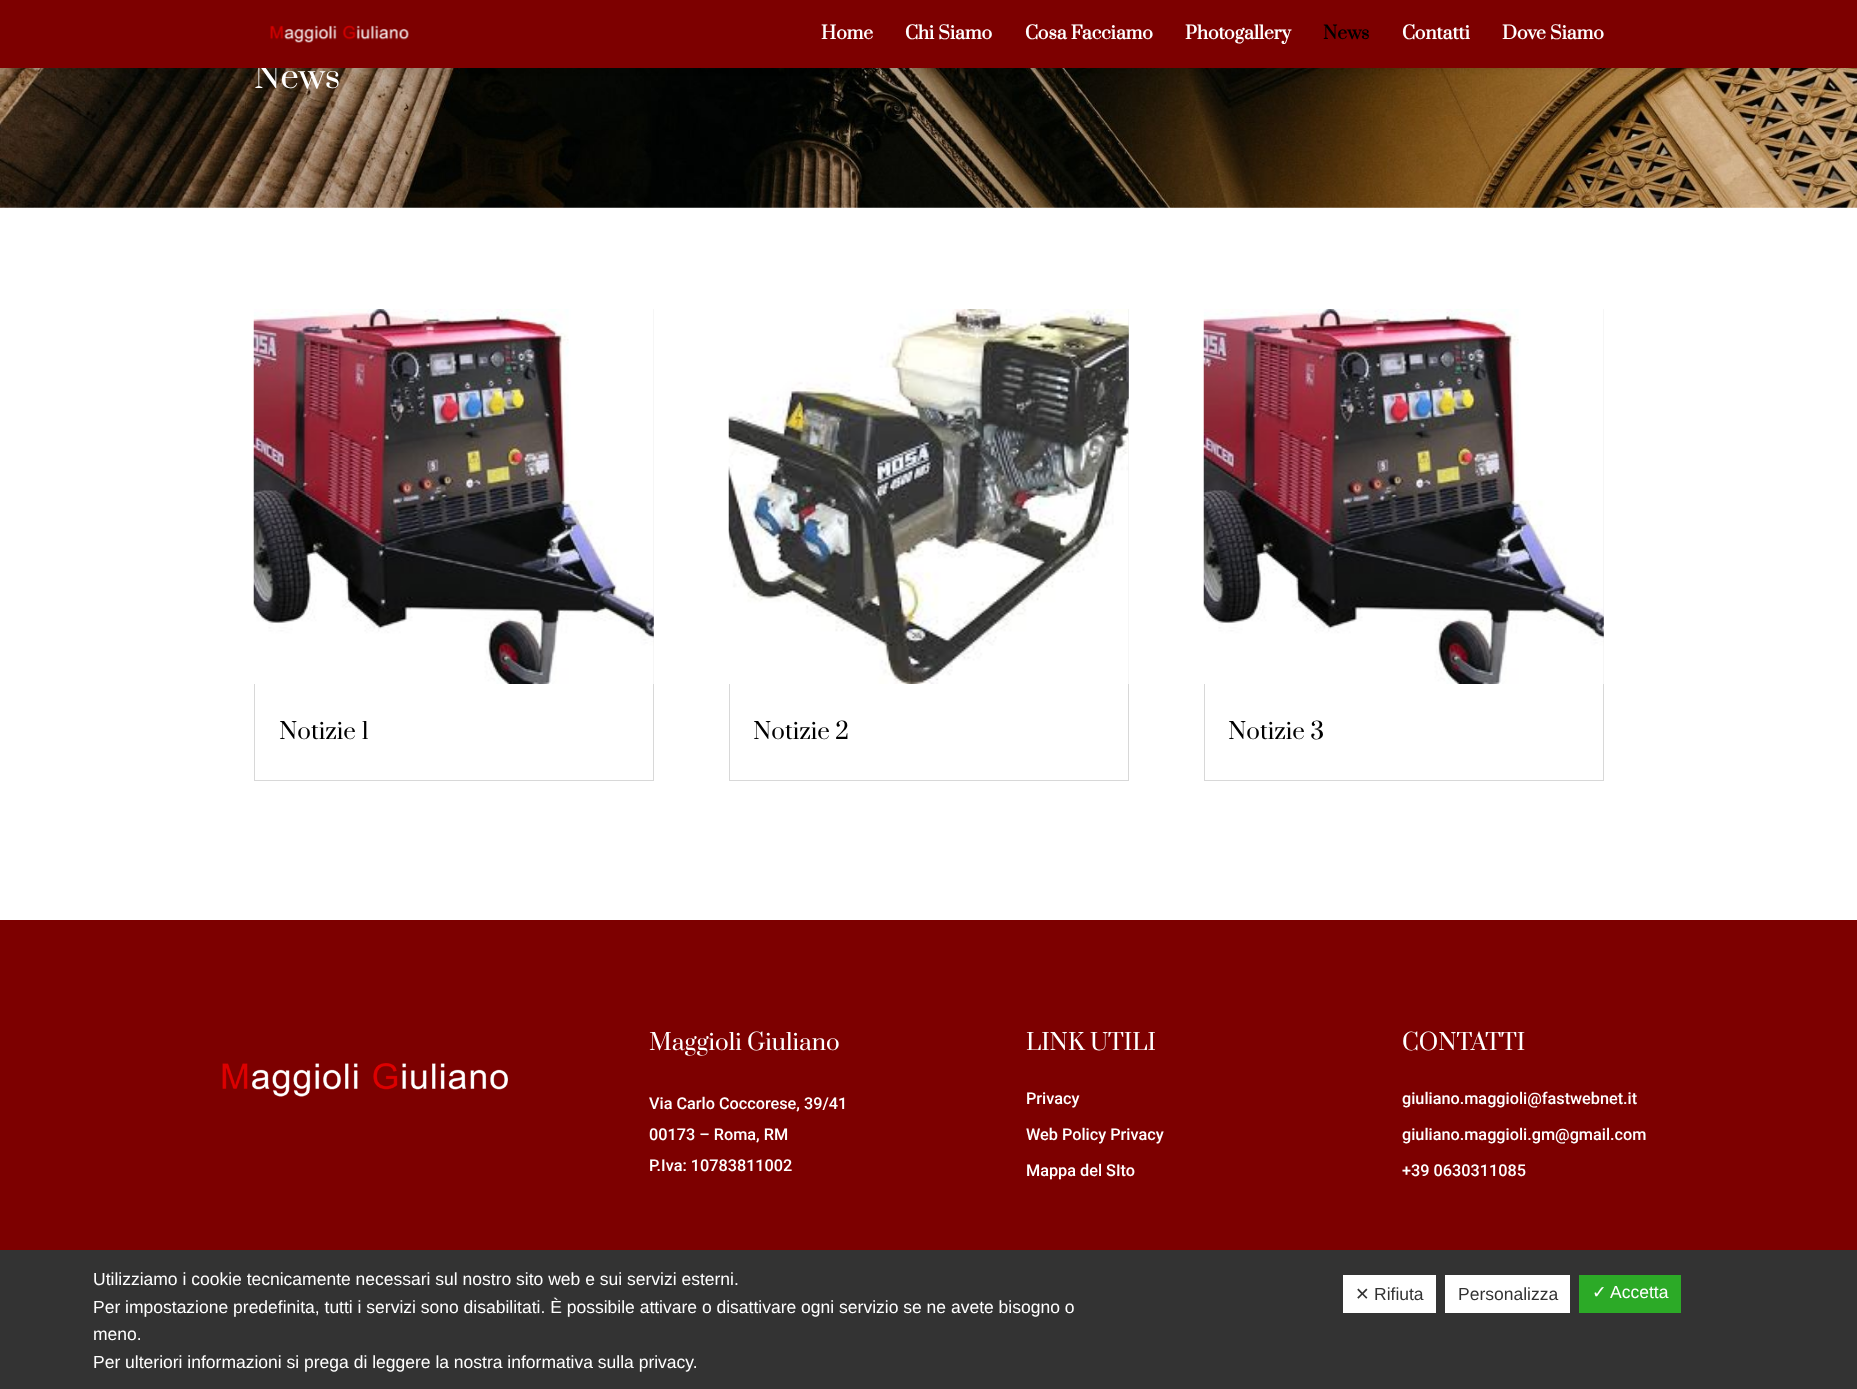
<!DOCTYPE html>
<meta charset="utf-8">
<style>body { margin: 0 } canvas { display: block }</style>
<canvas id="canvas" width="1857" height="1389"></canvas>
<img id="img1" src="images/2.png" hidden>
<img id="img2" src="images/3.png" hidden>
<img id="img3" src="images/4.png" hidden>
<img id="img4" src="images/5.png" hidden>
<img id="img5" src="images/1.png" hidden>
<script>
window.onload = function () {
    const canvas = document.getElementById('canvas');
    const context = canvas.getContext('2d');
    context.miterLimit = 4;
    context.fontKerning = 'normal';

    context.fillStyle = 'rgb(255, 255, 255)';
    context.fillRect(0, 0, 1857, 1389);
    context.drawImage(document.getElementById('img1'), 0, 68, 1857, 140);
    context.fillStyle = 'rgba(0, 0, 0, 0.1)';
    context.filter = 'blur(4.5px)';
    context.beginPath();
    context.rect(0, 0, 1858, 68);
    context.fill();
    context.filter = 'none';
    context.strokeStyle = 'rgb(216, 216, 216)';
    context.strokeRect(254.5, 309.5, 399, 471);
    context.drawImage(document.getElementById('img2'), 253, 309, 401, 375);
    context.strokeRect(729.5, 309.5, 399, 471);
    context.drawImage(document.getElementById('img3'), 728, 309, 401, 375);
    context.strokeRect(1204.5, 309.5, 399, 471);
    context.drawImage(document.getElementById('img2'), 1203, 309, 401, 375);
    context.fillStyle = 'rgb(125, 0, 0)';
    context.fillRect(0, 920, 1857, 330);
    context.drawImage(document.getElementById('img4'), 222, 1063, 286, 34);
    context.fillStyle = 'rgb(51, 51, 51)';
    context.fillRect(0, 1250, 1857, 139);
    context.fillStyle = 'rgb(255, 255, 255)';
    context.fillRect(1343, 1275, 93, 38);
    context.fillRect(1445, 1275, 125, 38);
    context.fillStyle = 'rgb(44, 170, 39)';
    context.fillRect(1579, 1275, 102, 38);
    context.font = '32.5px Prata';
    context.fillStyle = 'rgb(255, 255, 255)';
    context.fillText('News', 254, 88);
    context.fillStyle = 'rgb(125, 0, 0)';
    context.fillRect(0, 0, 1857, 68);
    context.font = 'bold 17.5px Prata';
    context.fillStyle = 'rgb(255, 255, 255)';
    context.fillText('Dove Siamo', 1502, 39);
    context.fillText('Contatti', 1402, 39);
    context.fillStyle = 'rgb(0, 0, 0)';
    context.fillText('News', 1323, 39);
    context.fillStyle = 'rgb(255, 255, 255)';
    context.fillText('Photogallery', 1185, 39);
    context.fillText('Cosa Facciamo', 1025, 39);
    context.fillText('Chi Siamo', 905, 39);
    context.fillText('Home', 821, 39);
    context.drawImage(document.getElementById('img5'), 270, 25, 139, 18);
    context.font = '22.5px Prata';
    context.fillStyle = 'rgb(0, 0, 0)';
    context.fillText('Notizie 1', 279, 739);
    context.fillText('Notizie 2', 753, 739);
    context.fillText('Notizie 3', 1228, 739);
    context.fillStyle = 'rgb(255, 255, 255)';
    context.fillText('Maggioli Giuliano', 649, 1050);
    context.font = '500 16.25px Roboto';
    context.fillText('Via Carlo Coccorese, 39/41', 649, 1109);
    context.fillText('00173 – Roma, RM', 649, 1140);
    context.fillText('P.Iva: 10783811002', 649, 1171);
    context.font = '22.5px Prata';
    context.fillText('LINK UTILI', 1026, 1050);
    context.font = '500 16.25px Roboto';
    context.fillText('Privacy', 1026, 1104);
    context.fillText('Web Policy Privacy', 1026, 1140);
    context.fillText('Mappa del SIto', 1026, 1176);
    context.font = '22.5px Prata';
    context.fillText('CONTATTI', 1402, 1050);
    context.font = '500 16.25px Roboto';
    context.fillText('giuliano.maggioli@fastwebnet.it', 1402, 1104);
    context.fillText('giuliano.maggioli.gm@gmail.com', 1402, 1140);
    context.fillText('+39 0630311085', 1402, 1176);
    context.font = '17.5px Liberation Sans';
    context.fillText('Utilizziamo i cookie tecnicamente necessari sul nostro sito web e sui servizi esterni.', 93, 1285);
    context.fillText('Per impostazione predefinita, tutti i servizi sono disabilitati. È possibile attivare o disattivare ogni servizio se ne avete bisogno o', 93, 1313);
    context.fillText('meno.', 93, 1340);
    context.fillText('Per ulteriori informazioni si prega di leggere la nostra informativa sulla privacy.', 93, 1368);
    context.font = '17.5px DejaVu Sans';
    context.fillStyle = 'rgb(51, 51, 51)';
    context.fillText('✕', 1355, 1300);
    context.font = '17.5px Liberation Sans';
    context.fillText('Rifiuta', 1374, 1300);
    context.fillText('Personalizza', 1458, 1300);
    context.font = '17.5px DejaVu Sans';
    context.fillStyle = 'rgb(255, 255, 255)';
    context.fillText('✓', 1592, 1298);
    context.font = '17.5px Liberation Sans';
    context.fillText('Accetta', 1610, 1298);
};
</script>
